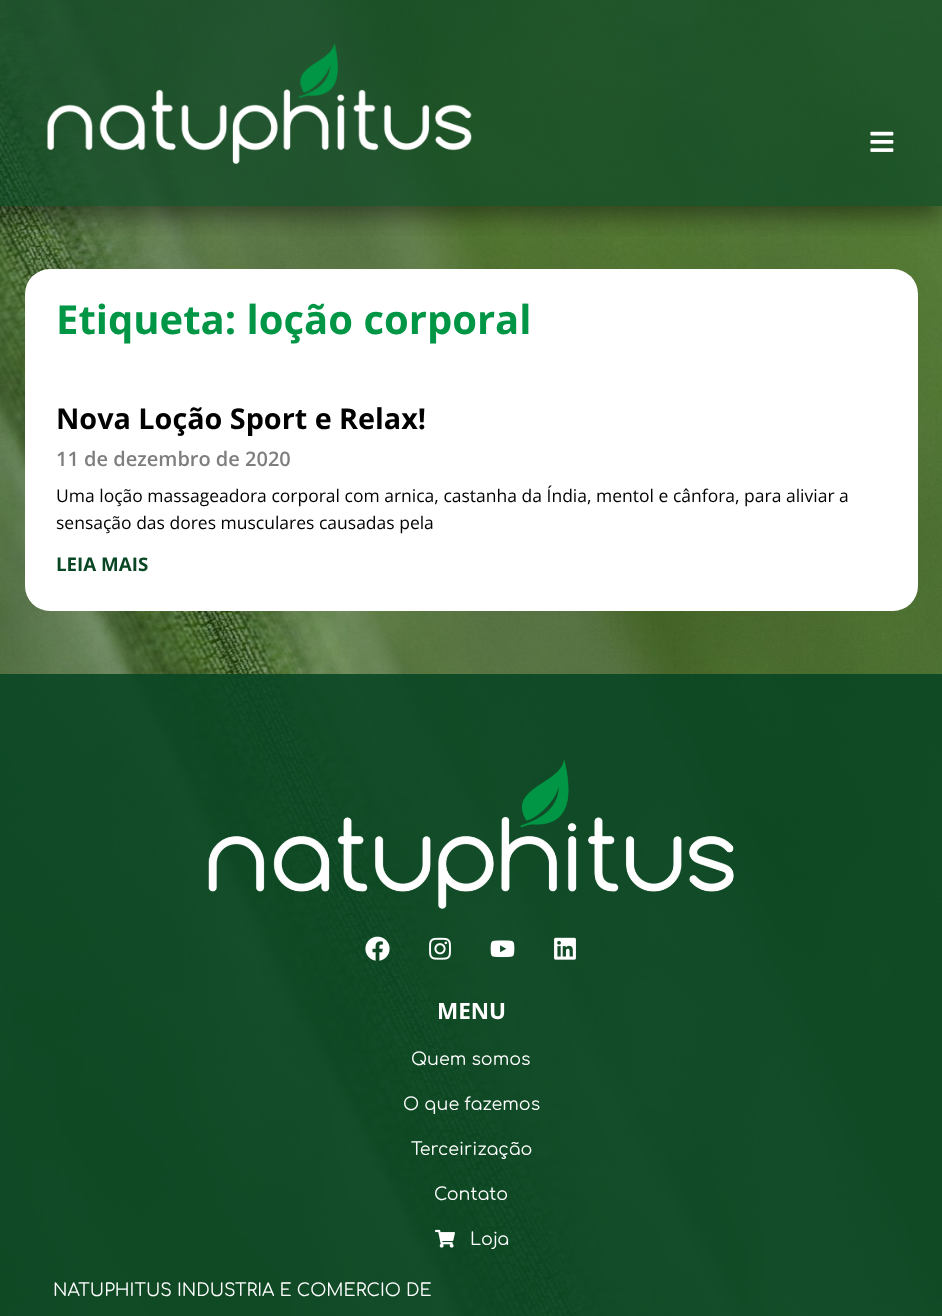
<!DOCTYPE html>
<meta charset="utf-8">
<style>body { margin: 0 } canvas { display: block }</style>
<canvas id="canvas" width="942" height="1316"></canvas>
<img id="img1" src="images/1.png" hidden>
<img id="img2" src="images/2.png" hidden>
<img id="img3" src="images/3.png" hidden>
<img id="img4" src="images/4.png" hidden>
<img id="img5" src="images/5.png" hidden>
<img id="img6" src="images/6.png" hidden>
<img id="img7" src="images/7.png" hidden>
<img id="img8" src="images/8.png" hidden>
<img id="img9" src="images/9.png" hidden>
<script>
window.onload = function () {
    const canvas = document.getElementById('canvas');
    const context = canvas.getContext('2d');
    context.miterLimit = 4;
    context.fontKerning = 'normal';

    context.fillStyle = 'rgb(255, 255, 255)';
    context.fillRect(0, 0, 942, 1316);
    context.drawImage(document.getElementById('img1'), 0, 0, 942, 1316);
    context.save();
    context.beginPath();
    context.rect(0, 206, 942, 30);
    context.clip();
    context.fillStyle = 'rgba(0, 0, 0, 0.43)';
    context.filter = 'blur(12px)';
    context.beginPath();
    context.rect(-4, 5, 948, 211);
    context.fill();
    context.filter = 'none';
    context.restore();
    context.fillStyle = 'rgba(9, 70, 36, 0.7)';
    context.fillRect(0, 0, 942, 206);
    context.drawImage(document.getElementById('img2'), 47, 43, 425, 121);
    context.drawImage(document.getElementById('img3'), 870, 131, 24, 21);
    context.fillStyle = 'rgb(255, 255, 255)';
    context.beginPath();
    context.roundRect(25, 269, 893, 342, 25);
    context.fill();
    context.fillStyle = 'rgba(9, 70, 36, 0.9)';
    context.fillRect(0, 674, 942, 642);
    context.drawImage(document.getElementById('img4'), 208, 759, 526, 150);
    context.drawImage(document.getElementById('img5'), 365, 936, 25, 25);
    context.drawImage(document.getElementById('img6'), 429, 937, 22, 23);
    context.drawImage(document.getElementById('img7'), 490, 940, 25, 18);
    context.drawImage(document.getElementById('img8'), 554, 937, 22, 23);
    context.drawImage(document.getElementById('img9'), 435, 1229, 20, 19);
    context.font = 'bold 40px Open Sans';
    context.fillStyle = 'rgb(0, 150, 69)';
    context.fillText('Etiqueta: loção corporal', 56, 334);
    context.font = 'bold 28.75px Open Sans';
    context.fillStyle = 'rgb(0, 0, 0)';
    context.fillText('Nova Loção Sport e Relax!', 56, 429);
    context.font = '600 20px Open Sans';
    context.fillStyle = 'rgb(126, 126, 126)';
    context.fillText('11 de dezembro de 2020', 56, 466);
    context.font = '17.5px Open Sans';
    context.fillStyle = 'rgb(0, 0, 0)';
    context.fillText('Uma loção massageadora corporal com arnica, castanha da Índia, mentol e cânfora, para aliviar a', 56, 502);
    context.fillText('sensação das dores musculares causadas pela', 56, 529);
    context.font = 'bold 18.75px Open Sans';
    context.fillStyle = 'rgb(9, 70, 36)';
    context.fillText('LEIA MAIS', 56, 571);
    context.font = 'bold 22.5px Open Sans';
    context.fillStyle = 'rgb(255, 255, 255)';
    context.fillText('MENU', 437, 1019);
    context.font = '17.5px Comfortaa';
    context.fillText('Quem somos', 411, 1065);
    context.fillText('O que fazemos', 403, 1110);
    context.fillText('Terceirização', 411, 1155);
    context.fillText('Contato', 434, 1200);
    context.fillText('Loja', 470, 1245);
    context.fillText('NATUPHITUS INDUSTRIA E COMERCIO DE', 53, 1296);
};
</script>
